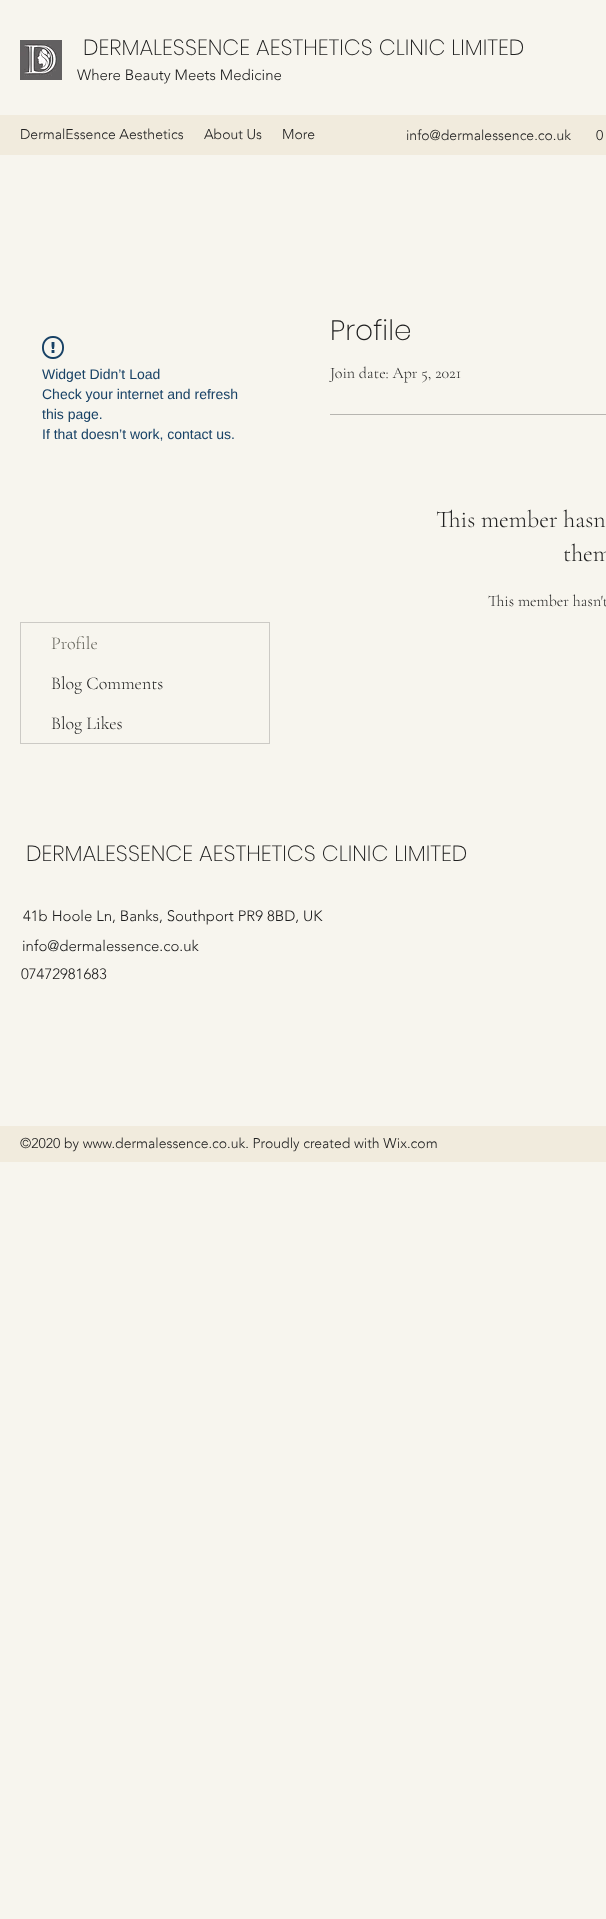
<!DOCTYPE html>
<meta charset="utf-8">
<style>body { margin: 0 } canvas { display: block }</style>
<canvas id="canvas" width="606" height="1919"></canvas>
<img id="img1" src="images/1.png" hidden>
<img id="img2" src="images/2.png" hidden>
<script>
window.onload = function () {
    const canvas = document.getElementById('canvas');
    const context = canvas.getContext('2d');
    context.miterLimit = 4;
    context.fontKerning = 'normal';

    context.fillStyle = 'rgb(247, 245, 238)';
    context.fillRect(0, 0, 606, 1919);
    context.drawImage(document.getElementById('img1'), 20, 40, 42, 40);
    context.fillStyle = 'rgb(241, 235, 221)';
    context.fillRect(0, 115, 606, 40);
    context.drawImage(document.getElementById('img2'), 42, 336, 22, 23);
    context.strokeStyle = 'rgb(204, 202, 197)';
    context.strokeRect(20.5, 622.5, 249, 121);
    context.fillStyle = 'rgb(183, 181, 176)';
    context.fillRect(330, 414, 276, 1);
    context.fillStyle = 'rgb(241, 235, 221)';
    context.fillRect(0, 1126, 606, 36);
    context.font = '200 22px Poppins';
    context.fillStyle = 'rgb(32, 32, 32)';
    context.fillText('DERMALESSENCE AESTHETICS CLINIC LIMITED', 83, 55);
    context.font = '300 15px "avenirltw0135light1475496"';
    context.fillText('Where Beauty Meets Medicine', 77, 80);
    context.font = '300 14px "avenirltw0135light1475496"';
    context.fillText('DermalEssence Aesthetics', 20, 139);
    context.fillText('About Us', 204, 139);
    context.fillText('More', 282, 139);
    context.fillText('info@dermalessence.co.uk', 406, 140);
    context.fillText('0', 596, 140);
    context.font = '14px Liberation Sans';
    context.fillStyle = 'rgb(23, 65, 101)';
    context.fillText('Widget Didn’t Load', 42, 379);
    context.fillText('Check your internet and refresh', 42, 399);
    context.fillText('this page.', 42, 419);
    context.fillText('If that doesn’t work, contact us.', 42, 439);
    context.font = '300 18px Cormorant Garamond';
    context.fillStyle = 'rgb(97, 96, 87)';
    context.fillText('Profile', 51, 649);
    context.fillStyle = 'rgb(32, 32, 32)';
    context.fillText('Blog Comments', 51, 689);
    context.fillText('Blog Likes', 51, 729);
    context.font = '200 28px Poppins';
    context.fillText('Profile', 330, 340);
    context.font = '300 16px Cormorant Garamond';
    context.fillText('Join date: Apr 5, 2021', 330, 378);
    context.font = '300 24px Cormorant Garamond';
    context.fillText('This member hasn', 436, 527);
    context.fillText('them', 563, 561);
    context.font = '300 16px Cormorant Garamond';
    context.fillText('This member hasn\'t', 488, 606);
    context.font = '200 22px Poppins';
    context.fillText('DERMALESSENCE AESTHETICS CLINIC LIMITED', 26, 861);
    context.font = '300 15px "avenirltw0135light1475496"';
    context.fillText('41b Hoole Ln, Banks, Southport PR9 8BD, UK', 23, 921);
    context.fillText('info@dermalessence.co.uk', 22, 951);
    context.fillText('07472981683', 21, 979);
    context.font = '300 14px "avenirltw0135light1475496"';
    context.fillText('©2020 by www.dermalessence.co.uk. Proudly created with Wix.com', 20, 1148);
};
</script>
